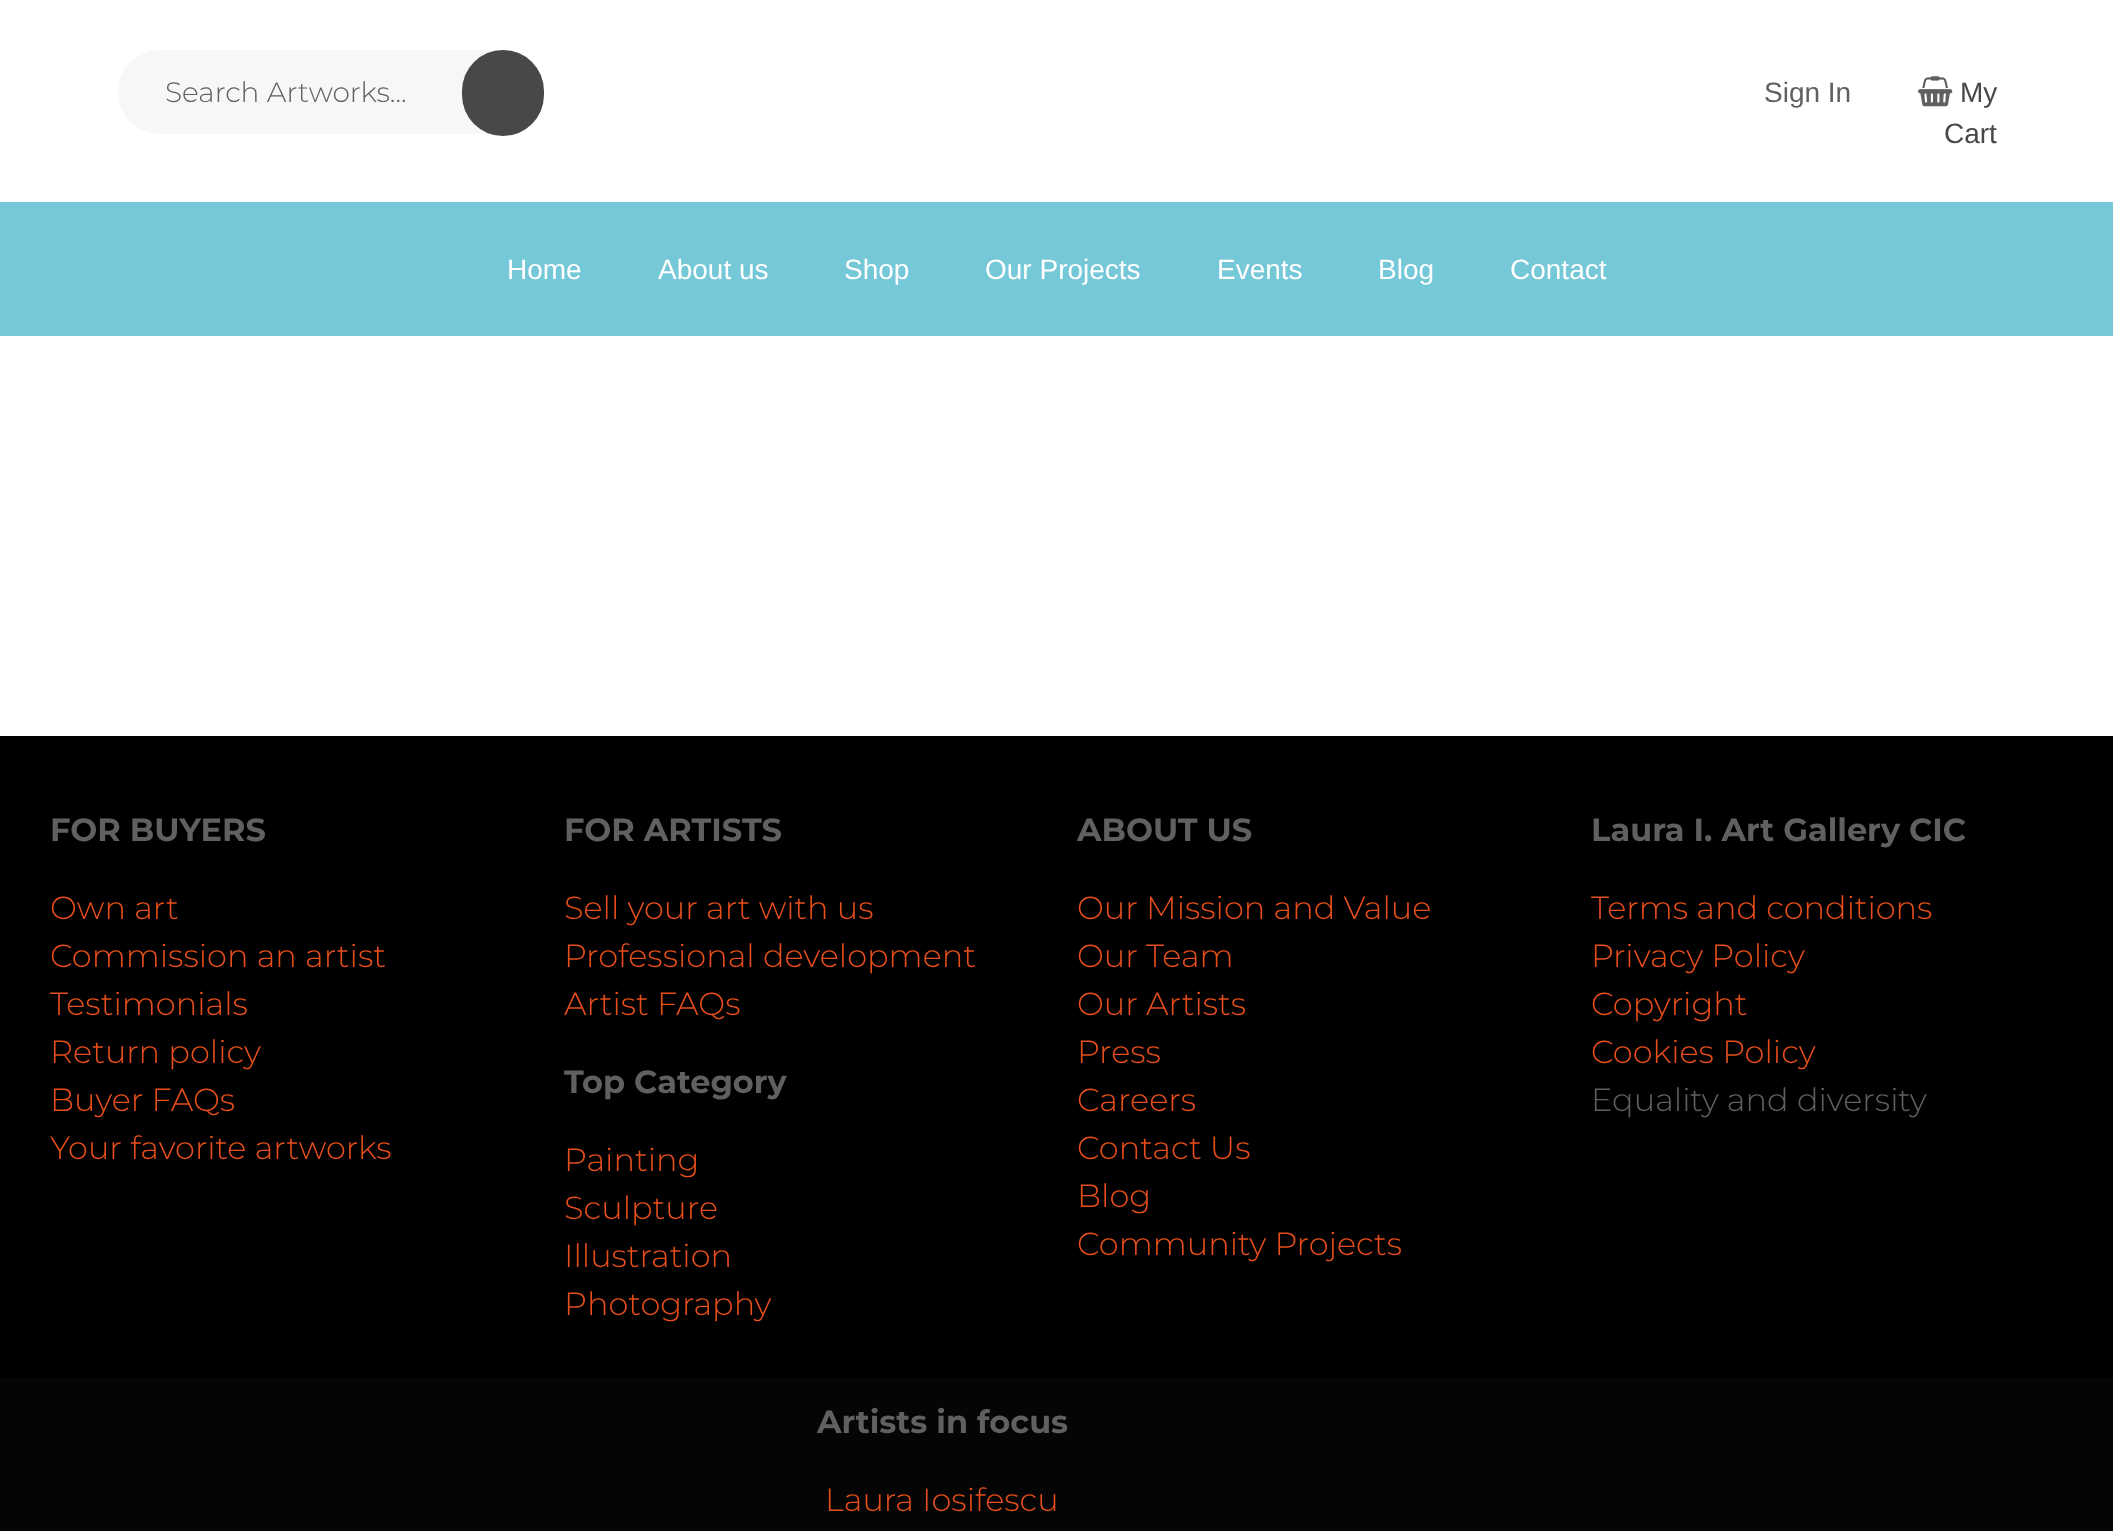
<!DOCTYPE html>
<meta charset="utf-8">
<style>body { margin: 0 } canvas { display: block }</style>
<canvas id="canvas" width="2113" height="1531"></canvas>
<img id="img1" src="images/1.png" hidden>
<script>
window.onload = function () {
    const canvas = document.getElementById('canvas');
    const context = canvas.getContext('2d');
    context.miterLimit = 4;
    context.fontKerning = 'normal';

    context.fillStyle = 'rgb(255, 255, 255)';
    context.fillRect(0, 0, 2113, 1531);
    context.fillStyle = 'rgb(247, 247, 247)';
    context.beginPath();
    context.roundRect(118, 50, 424, 84, 42);
    context.fill();
    context.fillStyle = 'rgb(72, 72, 72)';
    context.beginPath();
    context.roundRect(462, 50, 82, 86, 41);
    context.fill();
    context.drawImage(document.getElementById('img1'), 1918, 76, 35, 31);
    context.fillStyle = 'rgb(117, 200, 215)';
    context.fillRect(0, 202, 2113, 134);
    context.fillStyle = 'rgb(0, 0, 0)';
    context.fillRect(0, 736, 2113, 642);
    context.fillStyle = 'rgb(5, 5, 6)';
    context.fillRect(0, 1378, 2113, 153);
    context.font = '100 28px Montserrat';
    context.fillStyle = 'rgb(96, 96, 96)';
    context.fillText('Search Artworks...', 165, 102);
    context.font = '28px Liberation Sans';
    context.fillText('Sign In', 1764, 102);
    context.fillStyle = 'rgb(72, 72, 72)';
    context.fillText('My', 1960, 102);
    context.fillText('Cart', 1944, 143);
    context.fillStyle = 'rgb(255, 255, 255)';
    context.fillText('Home', 507, 279);
    context.fillText('About us', 658, 279);
    context.fillText('Shop', 844, 279);
    context.fillText('Our Projects', 985, 279);
    context.fillText('Events', 1217, 279);
    context.fillText('Blog', 1378, 279);
    context.fillText('Contact', 1510, 279);
    context.font = 'bold 32px Montserrat';
    context.fillStyle = 'rgb(96, 96, 96)';
    context.fillText('FOR BUYERS', 50, 841);
    context.font = '100 32px Montserrat';
    context.fillStyle = 'rgb(231, 78, 27)';
    context.fillText('Own art', 50, 919);
    context.fillText('Commission an artist', 50, 967);
    context.fillText('Testimonials', 50, 1015);
    context.fillText('Return policy', 50, 1063);
    context.fillText('Buyer FAQs', 50, 1111);
    context.fillText('Your favorite artworks', 50, 1159);
    context.font = 'bold 32px Montserrat';
    context.fillStyle = 'rgb(96, 96, 96)';
    context.fillText('FOR ARTISTS', 564, 841);
    context.font = '100 32px Montserrat';
    context.fillStyle = 'rgb(231, 78, 27)';
    context.fillText('Sell your art with us', 564, 919);
    context.fillText('Professional development', 564, 967);
    context.fillText('Artist FAQs', 564, 1015);
    context.font = 'bold 32px Montserrat';
    context.fillStyle = 'rgb(96, 96, 96)';
    context.fillText('Top Category', 564, 1093);
    context.font = '100 32px Montserrat';
    context.fillStyle = 'rgb(231, 78, 27)';
    context.fillText('Painting', 564, 1171);
    context.fillText('Sculpture', 564, 1219);
    context.fillText('Illustration', 564, 1267);
    context.fillText('Photography', 564, 1315);
    context.font = 'bold 32px Montserrat';
    context.fillStyle = 'rgb(96, 96, 96)';
    context.fillText('ABOUT US', 1077, 841);
    context.font = '100 32px Montserrat';
    context.fillStyle = 'rgb(231, 78, 27)';
    context.fillText('Our Mission and Value', 1077, 919);
    context.fillText('Our Team', 1077, 967);
    context.fillText('Our Artists', 1077, 1015);
    context.fillText('Press', 1077, 1063);
    context.fillText('Careers', 1077, 1111);
    context.fillText('Contact Us', 1077, 1159);
    context.fillText('Blog', 1077, 1207);
    context.fillText('Community Projects', 1077, 1255);
    context.font = 'bold 32px Montserrat';
    context.fillStyle = 'rgb(96, 96, 96)';
    context.fillText('Laura I. Art Gallery CIC', 1591, 841);
    context.font = '100 32px Montserrat';
    context.fillStyle = 'rgb(231, 78, 27)';
    context.fillText('Terms and conditions', 1591, 919);
    context.fillText('Privacy Policy', 1591, 967);
    context.fillText('Copyright', 1591, 1015);
    context.fillText('Cookies Policy', 1591, 1063);
    context.fillStyle = 'rgb(96, 96, 96)';
    context.fillText('Equality and diversity', 1591, 1111);
    context.font = 'bold 32px Montserrat';
    context.fillText('Artists in focus', 817, 1433);
    context.font = '100 32px Montserrat';
    context.fillStyle = 'rgb(231, 78, 27)';
    context.fillText('Laura Iosifescu', 825, 1511);
};
</script>
